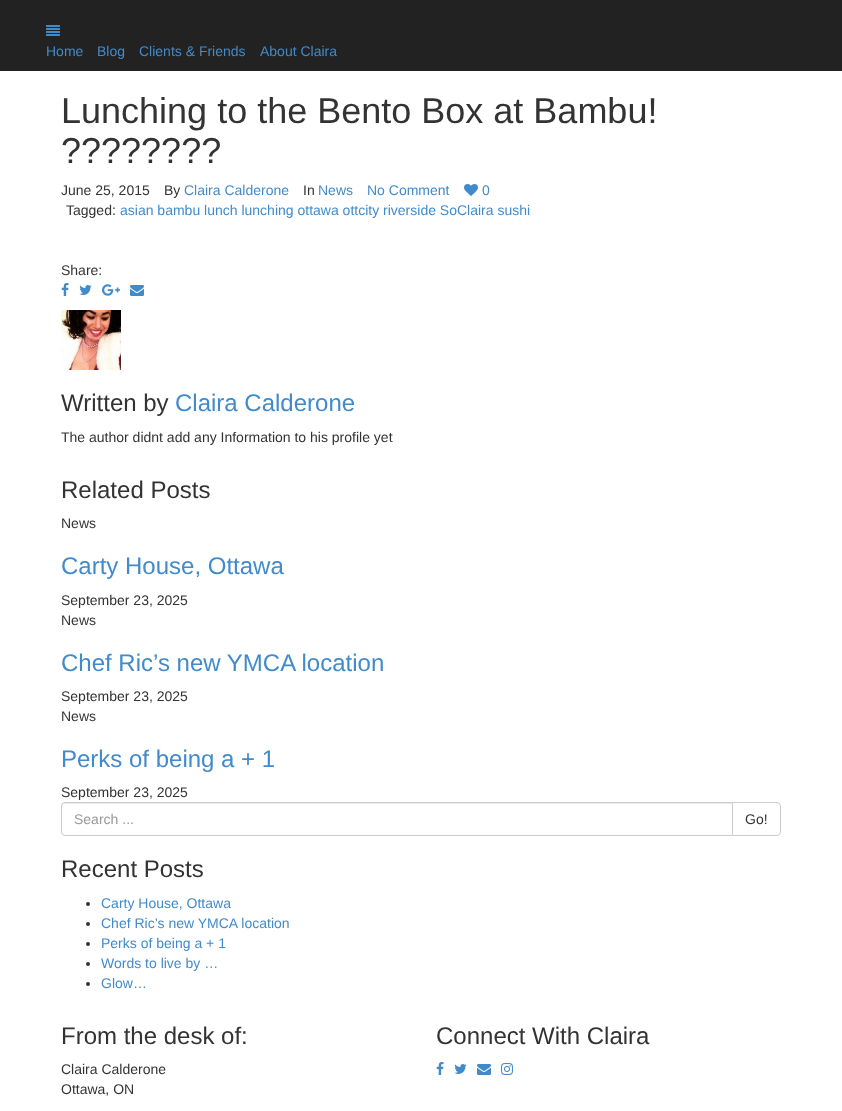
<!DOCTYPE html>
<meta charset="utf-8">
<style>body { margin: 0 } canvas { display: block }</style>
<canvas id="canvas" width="842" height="1111"></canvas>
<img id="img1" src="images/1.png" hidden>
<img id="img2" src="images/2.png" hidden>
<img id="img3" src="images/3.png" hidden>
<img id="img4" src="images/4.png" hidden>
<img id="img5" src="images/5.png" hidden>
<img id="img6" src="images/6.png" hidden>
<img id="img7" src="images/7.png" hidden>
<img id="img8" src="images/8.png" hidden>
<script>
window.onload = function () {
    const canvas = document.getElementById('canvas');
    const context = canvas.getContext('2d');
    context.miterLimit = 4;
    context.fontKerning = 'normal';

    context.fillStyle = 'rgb(255, 255, 255)';
    context.fillRect(0, 0, 842, 1111);
    context.fillStyle = 'rgb(34, 34, 34)';
    context.fillRect(0, 0, 842, 71);
    context.drawImage(document.getElementById('img1'), 46, 25, 14, 11);
    context.drawImage(document.getElementById('img2'), 464, 184, 14, 12);
    context.drawImage(document.getElementById('img3'), 61, 283, 8, 13);
    context.drawImage(document.getElementById('img4'), 79, 285, 13, 10);
    context.drawImage(document.getElementById('img5'), 102, 284, 18, 12);
    context.drawImage(document.getElementById('img6'), 130, 285, 14, 11);
    context.drawImage(document.getElementById('img7'), 61, 310, 60, 60);
    context.fillStyle = 'rgb(236, 236, 236)';
    context.beginPath();
    context.moveTo(65, 804);
    context.lineTo(732, 804);
    context.lineTo(732, 803);
    context.lineTo(65, 803);
    context.bezierCurveTo(63, 803, 62, 804, 62, 806);
    context.lineTo(62, 807);
    context.bezierCurveTo(62, 805, 63, 804, 65, 804);
    context.closePath();
    context.fill();
    context.beginPath();
    context.roundRect(61.5, 802.5, 671, 33, [3.5, 0, 0, 3.5]);
    context.strokeStyle = 'rgb(204, 204, 204)';
    context.stroke();
    context.fillStyle = 'rgb(255, 255, 255)';
    context.beginPath();
    context.roundRect(732.5, 802.5, 48, 33, [0, 3.5, 3.5, 0]);
    context.fill();
    context.stroke();
    context.fillStyle = 'rgb(51, 51, 51)';
    context.beginPath();
    context.arc(88, 904, 2, 0, 2 * Math.PI);
    context.fill();
    context.beginPath();
    context.arc(88, 924, 2, 0, 2 * Math.PI);
    context.fill();
    context.beginPath();
    context.arc(88, 944, 2, 0, 2 * Math.PI);
    context.fill();
    context.beginPath();
    context.arc(88, 964, 2, 0, 2 * Math.PI);
    context.fill();
    context.beginPath();
    context.arc(88, 984, 2, 0, 2 * Math.PI);
    context.fill();
    context.drawImage(document.getElementById('img3'), 436, 1062, 8, 13);
    context.drawImage(document.getElementById('img4'), 454, 1064, 13, 10);
    context.drawImage(document.getElementById('img6'), 477, 1064, 14, 11);
    context.drawImage(document.getElementById('img8'), 501, 1063, 12, 12);
    context.font = '14px Liberation Sans';
    context.fillStyle = 'rgb(66, 139, 202)';
    context.fillText('Home', 46, 56);
    context.fillText('Blog', 97, 56);
    context.fillText('Clients & Friends', 139, 56);
    context.fillText('About Claira', 260, 56);
    context.font = '36px Liberation Sans';
    context.fillStyle = 'rgb(51, 51, 51)';
    context.fillText('Lunching to the Bento Box at Bambu!', 61, 123);
    context.fillText('????????', 61, 163);
    context.font = '14px Liberation Sans';
    context.fillText('June 25, 2015', 61, 195);
    context.fillText('By', 164, 195);
    context.fillStyle = 'rgb(66, 139, 202)';
    context.fillText('Claira Calderone', 184, 195);
    context.fillStyle = 'rgb(51, 51, 51)';
    context.fillText('In', 303, 195);
    context.fillStyle = 'rgb(66, 139, 202)';
    context.fillText('News', 318, 195);
    context.fillText('No Comment', 367, 195);
    context.fillText('0', 482, 195);
    context.fillStyle = 'rgb(51, 51, 51)';
    context.fillText('Tagged:', 66, 215);
    context.fillStyle = 'rgb(66, 139, 202)';
    context.fillText('asian bambu lunch lunching ottawa ottcity riverside SoClaira sushi', 120, 215);
    context.fillStyle = 'rgb(51, 51, 51)';
    context.fillText('Share:', 61, 275);
    context.font = '24px Liberation Sans';
    context.fillText('Written by', 61, 411);
    context.fillStyle = 'rgb(66, 139, 202)';
    context.fillText('Claira Calderone', 175, 411);
    context.font = '14px Liberation Sans';
    context.fillStyle = 'rgb(51, 51, 51)';
    context.fillText('The author didnt add any Information to his profile yet', 61, 442);
    context.font = '24px Liberation Sans';
    context.fillText('Related Posts', 61, 498);
    context.font = '14px Liberation Sans';
    context.fillText('News', 61, 528);
    context.font = '24px Liberation Sans';
    context.fillStyle = 'rgb(66, 139, 202)';
    context.fillText('Carty House, Ottawa', 61, 574);
    context.font = '14px Liberation Sans';
    context.fillStyle = 'rgb(51, 51, 51)';
    context.fillText('September 23, 2025', 61, 605);
    context.fillText('News', 61, 625);
    context.font = '24px Liberation Sans';
    context.fillStyle = 'rgb(66, 139, 202)';
    context.fillText('Chef Ric’s new YMCA location', 61, 671);
    context.font = '14px Liberation Sans';
    context.fillStyle = 'rgb(51, 51, 51)';
    context.fillText('September 23, 2025', 61, 701);
    context.fillText('News', 61, 721);
    context.font = '24px Liberation Sans';
    context.fillStyle = 'rgb(66, 139, 202)';
    context.fillText('Perks of being a + 1', 61, 767);
    context.font = '14px Liberation Sans';
    context.fillStyle = 'rgb(51, 51, 51)';
    context.fillText('September 23, 2025', 61, 797);
    context.fillStyle = 'rgb(153, 153, 153)';
    context.fillText('Search ...', 74, 824);
    context.fillStyle = 'rgb(51, 51, 51)';
    context.fillText('Go!', 745, 824);
    context.font = '24px Liberation Sans';
    context.fillText('Recent Posts', 61, 877);
    context.font = '14px Liberation Sans';
    context.fillStyle = 'rgb(66, 139, 202)';
    context.fillText('Carty House, Ottawa', 101, 908);
    context.fillText('Chef Ric’s new YMCA location', 101, 928);
    context.fillText('Perks of being a + 1', 101, 948);
    context.fillText('Words to live by …', 101, 968);
    context.fillText('Glow…', 101, 988);
    context.font = '24px Liberation Sans';
    context.fillStyle = 'rgb(51, 51, 51)';
    context.fillText('From the desk of:', 61, 1044);
    context.font = '14px Liberation Sans';
    context.fillText('Claira Calderone', 61, 1074);
    context.fillText('Ottawa, ON', 61, 1094);
    context.font = '24px Liberation Sans';
    context.fillText('Connect With Claira', 436, 1044);
};
</script>
